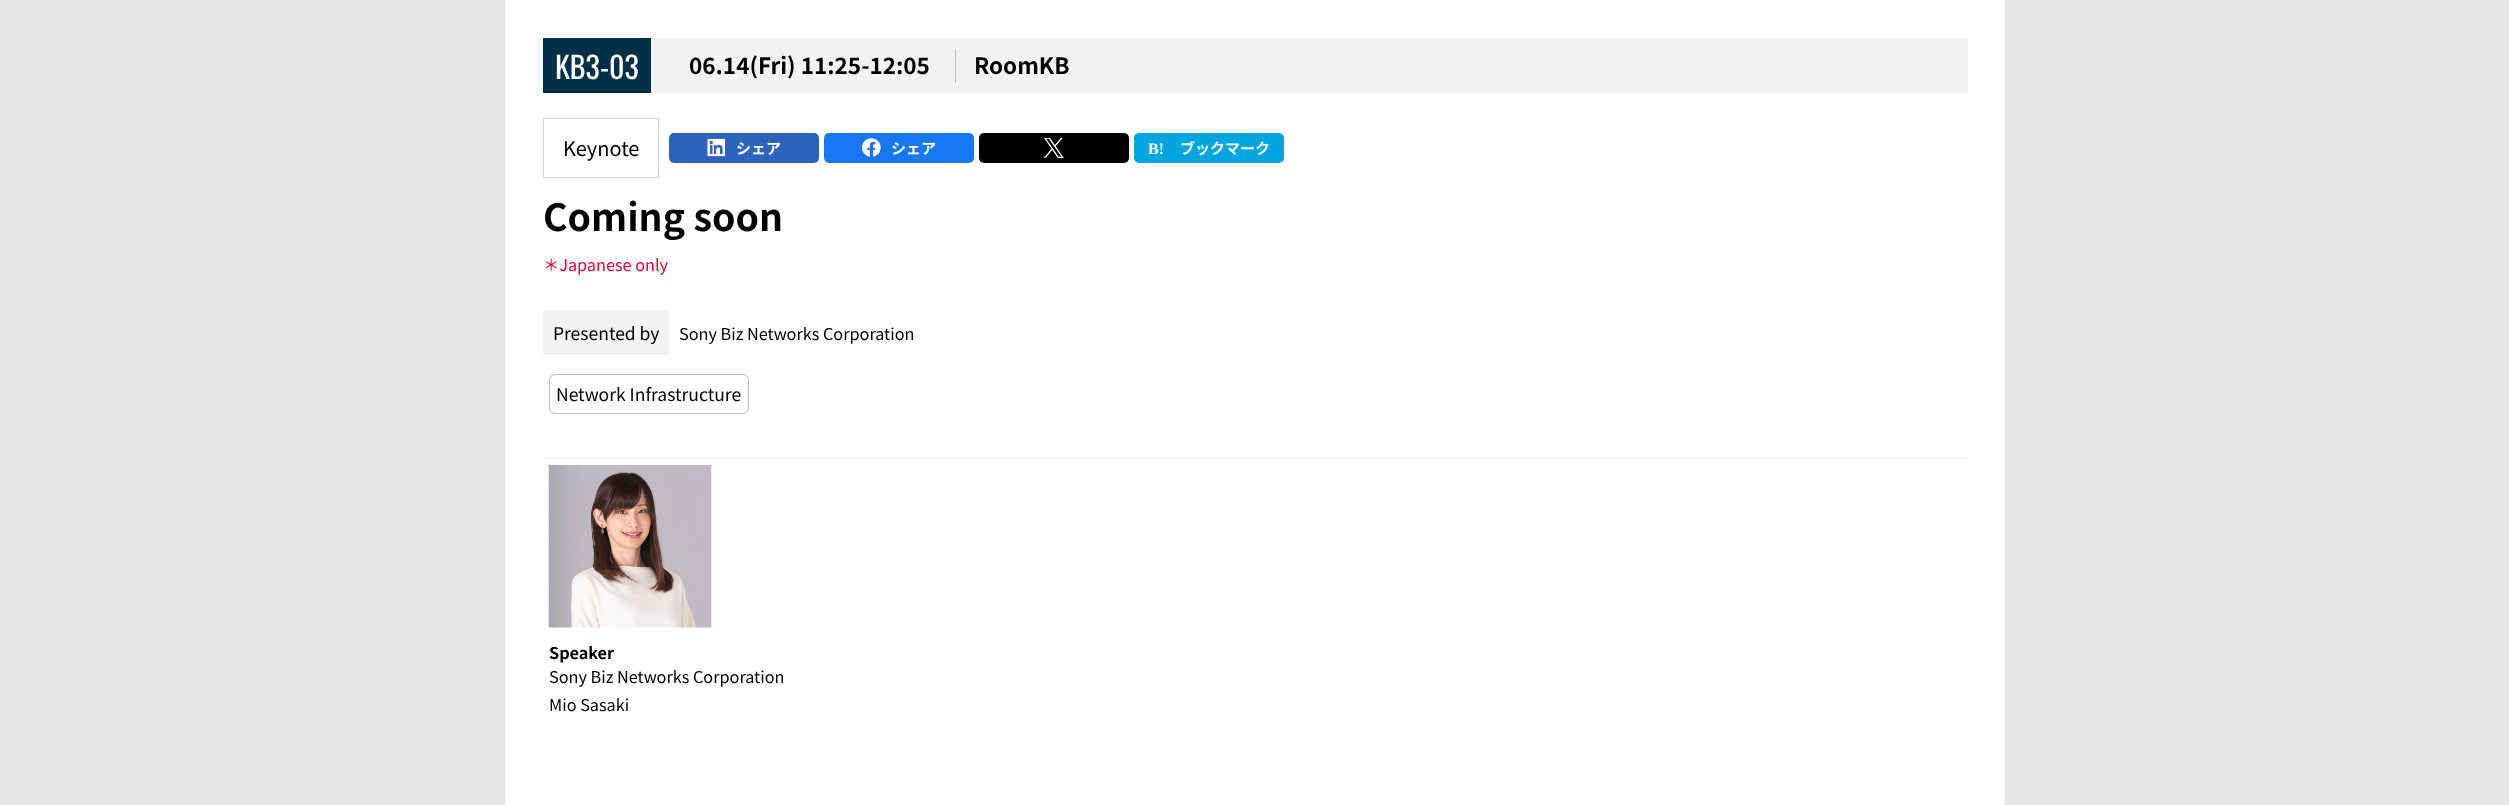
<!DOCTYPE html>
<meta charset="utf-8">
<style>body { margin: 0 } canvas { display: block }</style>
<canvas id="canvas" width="2509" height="805"></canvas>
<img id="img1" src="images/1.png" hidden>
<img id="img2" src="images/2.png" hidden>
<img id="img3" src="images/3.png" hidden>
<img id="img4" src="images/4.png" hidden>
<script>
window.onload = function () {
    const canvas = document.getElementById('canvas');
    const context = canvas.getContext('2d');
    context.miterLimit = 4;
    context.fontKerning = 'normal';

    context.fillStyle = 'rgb(230, 230, 230)';
    context.fillRect(0, 0, 2509, 805);
    context.fillStyle = 'rgb(255, 255, 255)';
    context.fillRect(505, 0, 1500, 805);
    context.fillStyle = 'rgb(241, 242, 242)';
    context.fillRect(651, 38, 1317, 55);
    context.fillStyle = 'rgb(0, 47, 72)';
    context.fillRect(543, 38, 108, 55);
    context.fillStyle = 'rgb(188, 190, 192)';
    context.fillRect(955, 49, 1, 34);
    context.strokeStyle = 'rgb(209, 211, 212)';
    context.strokeRect(543.5, 118.5, 115, 59);
    context.fillStyle = 'rgb(44, 100, 188)';
    context.beginPath();
    context.roundRect(669, 133, 150, 30, 5);
    context.fill();
    context.drawImage(document.getElementById('img1'), 707, 138, 18, 19);
    context.fillStyle = 'rgb(24, 119, 242)';
    context.beginPath();
    context.roundRect(824, 133, 150, 30, 5);
    context.fill();
    context.drawImage(document.getElementById('img2'), 862, 138, 19, 19);
    context.fillStyle = 'rgb(0, 0, 0)';
    context.beginPath();
    context.roundRect(979, 133, 150, 30, 5);
    context.fill();
    context.drawImage(document.getElementById('img3'), 1044, 138, 20, 20);
    context.fillStyle = 'rgb(1, 165, 223)';
    context.beginPath();
    context.roundRect(1134, 133, 150, 30, 5);
    context.fill();
    context.fillStyle = 'rgb(242, 242, 242)';
    context.fillRect(543, 310, 126, 45);
    context.beginPath();
    context.roundRect(549.5, 374.5, 199, 39, 5.5);
    context.strokeStyle = 'rgb(188, 190, 192)';
    context.stroke();
    context.fillStyle = 'rgb(241, 242, 242)';
    context.fillRect(543, 458, 1425, 1);
    context.drawImage(document.getElementById('img4'), 548, 465, 164, 163);
    context.font = '30px Oswald';
    context.fillStyle = 'rgb(255, 255, 255)';
    context.fillText('KB3-03', 555, 79);
    context.font = 'bold 22.5px Noto Sans JP';
    context.fillStyle = 'rgb(0, 0, 0)';
    context.fillText('06.14(Fri) 11:25-12:05', 689, 74);
    context.fillText('RoomKB', 974, 74);
    context.font = '20px Noto Sans JP';
    context.fillText('Keynote', 563, 156);
    context.font = 'bold 15px Noto Sans JP';
    context.fillStyle = 'rgb(255, 255, 255)';
    context.fillText('シェア', 736, 154);
    context.fillText('シェア', 891, 154);
    context.font = 'bold 16px Liberation Serif';
    context.fillText('B!', 1148, 154);
    context.font = 'bold 15px Noto Sans JP';
    context.fillText('ブックマーク', 1180, 154);
    context.font = 'bold 37.5px Noto Sans JP';
    context.fillStyle = 'rgb(0, 0, 0)';
    context.fillText('Coming soon', 543, 231);
    context.font = '16.25px Noto Sans JP';
    context.fillStyle = 'rgb(230, 0, 51)';
    context.fillText('＊Japanese only', 543, 271);
    context.font = '17.5px Noto Sans JP';
    context.fillStyle = 'rgb(0, 0, 0)';
    context.fillText('Presented by', 553, 340);
    context.font = '16.25px Noto Sans JP';
    context.fillText('Sony Biz Networks Corporation', 679, 340);
    context.font = '17.5px Noto Sans JP';
    context.fillText('Network Infrastructure', 556, 401);
    context.font = 'bold 16.25px Noto Sans JP';
    context.fillText('Speaker', 549, 659);
    context.font = '16.25px Noto Sans JP';
    context.fillText('Sony Biz Networks Corporation', 549, 683);
    context.fillText('Mio Sasaki', 549, 711);
};
</script>
